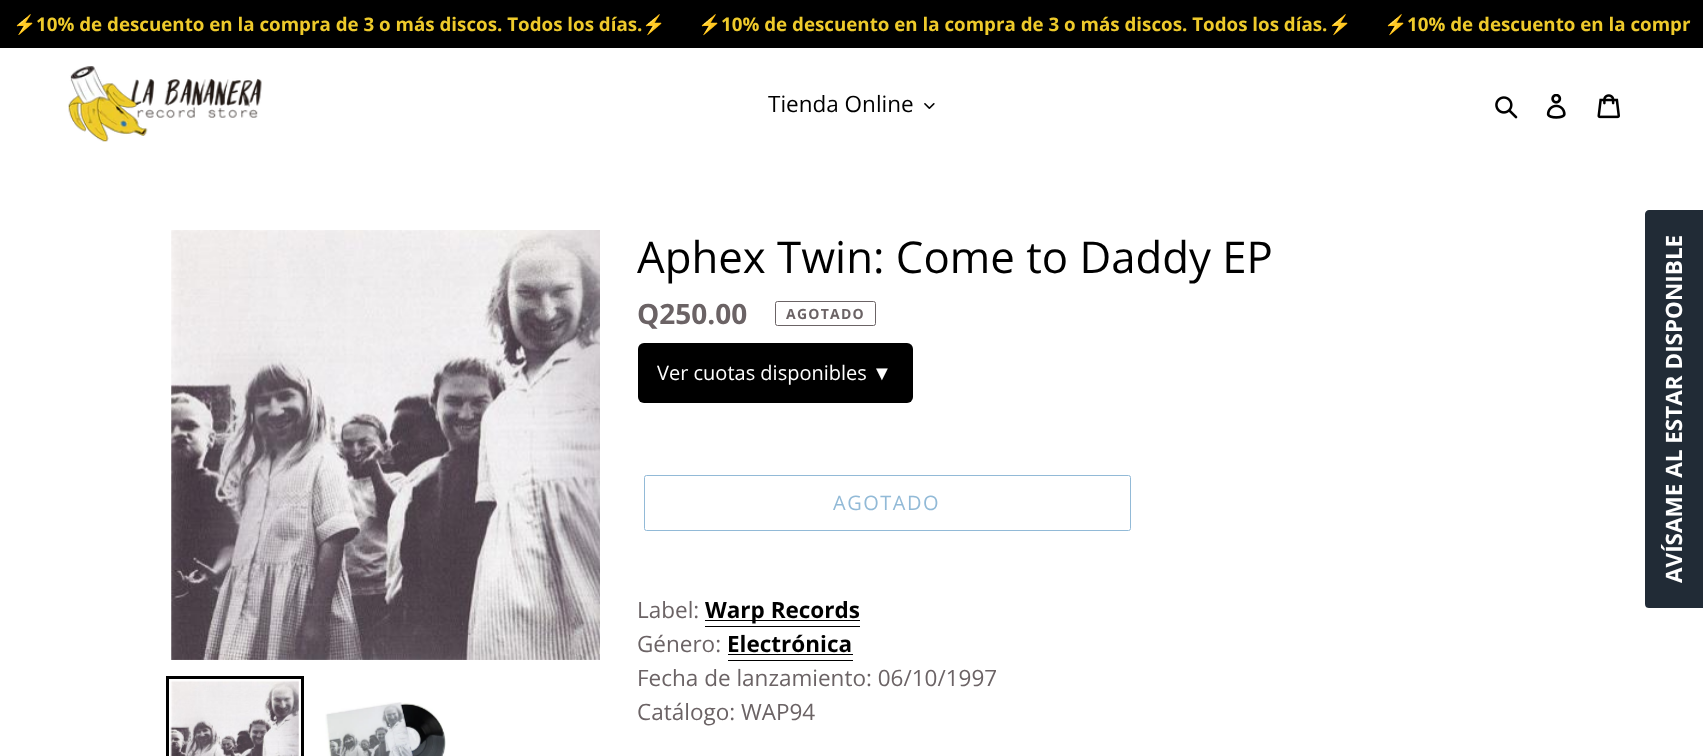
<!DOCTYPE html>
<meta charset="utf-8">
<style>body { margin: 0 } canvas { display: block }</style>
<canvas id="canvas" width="1703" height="756"></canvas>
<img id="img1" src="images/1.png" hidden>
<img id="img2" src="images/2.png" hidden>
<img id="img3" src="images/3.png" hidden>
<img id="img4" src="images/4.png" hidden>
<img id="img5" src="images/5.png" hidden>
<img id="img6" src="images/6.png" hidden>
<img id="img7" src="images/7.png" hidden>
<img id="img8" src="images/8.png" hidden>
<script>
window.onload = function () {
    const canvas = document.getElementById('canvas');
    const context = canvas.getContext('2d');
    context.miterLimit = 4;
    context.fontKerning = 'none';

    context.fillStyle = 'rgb(255, 255, 255)';
    context.fillRect(0, 0, 1703, 756);
    context.fillStyle = 'rgb(0, 0, 0)';
    context.fillRect(0, 0, 1703, 48);
    context.drawImage(document.getElementById('img1'), 68, 66, 194, 76);
    context.drawImage(document.getElementById('img2'), 924, 103, 11, 6);
    context.drawImage(document.getElementById('img3'), 1495, 96, 23, 23);
    context.drawImage(document.getElementById('img4'), 1546, 94, 20, 25);
    context.drawImage(document.getElementById('img5'), 1597, 94, 23, 25);
    context.drawImage(document.getElementById('img6'), 171, 230, 429, 430);
    context.strokeStyle = 'rgb(0, 0, 0)';
    context.lineWidth = 3;
    context.strokeRect(167.5, 677.5, 135, 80);
    context.drawImage(document.getElementById('img7'), 170, 680, 129, 76);
    context.drawImage(document.getElementById('img8'), 325, 702, 121, 54);
    context.beginPath();
    context.roundRect(775.5, 301.5, 100, 24, 2);
    context.strokeStyle = 'rgb(107, 99, 101)';
    context.lineWidth = 1;
    context.stroke();
    context.beginPath();
    context.roundRect(638, 343, 275, 60, 6);
    context.fill();
    context.beginPath();
    context.roundRect(644.5, 475.5, 486, 55, 2);
    context.strokeStyle = 'rgb(146, 186, 215)';
    context.stroke();
    context.fillRect(705, 626, 155, 1);
    context.fillRect(705, 620, 155, 1);
    context.fillRect(728, 660, 125, 1);
    context.fillRect(728, 654, 125, 1);
    context.fillStyle = 'rgb(33, 43, 54)';
    context.beginPath();
    context.moveTo(1645, 604);
    context.lineTo(1645, 214);
    context.bezierCurveTo(1645, 212, 1647, 210, 1649, 210);
    context.lineTo(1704, 210);
    context.lineTo(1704, 608);
    context.lineTo(1649, 608);
    context.bezierCurveTo(1647, 608, 1645, 607, 1645, 604);
    context.closePath();
    context.fill();
    context.save();
    context.beginPath();
    context.rect(13, 13, 1678, 22);
    context.clip();
    context.font = 'bold 18.75px Noto Color Emoji';
    context.fillStyle = 'rgb(238, 202, 43)';
    context.fillText('⚡', 13, 31);
    context.font = 'bold 18.75px Open Sans';
    context.fillText('10% de descuento en la compra de 3 o más discos. Todos los días.', 36, 31);
    context.restore();
    context.font = 'bold 18.75px Noto Color Emoji';
    context.fillStyle = 'rgb(238, 202, 43)';
    context.fillText('⚡', 642, 31);
    context.fillText('⚡', 698, 31);
    context.save();
    context.beginPath();
    context.rect(13, 13, 1678, 22);
    context.clip();
    context.font = 'bold 18.75px Open Sans';
    context.fillText('10% de descuento en la compra de 3 o más discos. Todos los días.', 721, 31);
    context.restore();
    context.fillText('⚡', 1328, 31);
    context.fillText('⚡', 1384, 31);
    context.save();
    context.beginPath();
    context.rect(13, 13, 1678, 22);
    context.clip();
    context.font = 'bold 18.75px Open Sans';
    context.fillText('10% de descuento en la compr', 1407, 31);
    context.restore();
    context.font = '22.5px Open Sans';
    context.fillStyle = 'rgb(0, 0, 0)';
    context.fillText('Tienda Online', 768, 112);
    context.font = '43.75px Open Sans';
    context.fillText('Aphex Twin: Come to Daddy EP', 637, 273);
    context.font = 'bold 28px Open Sans';
    context.fillStyle = 'rgb(107, 99, 101)';
    context.fillText('Q250.00', 637, 324);
    context.letterSpacing = '1.25px';
    context.font = 'bold 14px Open Sans';
    context.fillText('AGOTADO', 786, 319);
    context.letterSpacing = '0px';
    context.font = '20px Open Sans';
    context.fillStyle = 'rgb(255, 255, 255)';
    context.fillText('Ver cuotas disponibles', 657, 380);
    context.font = '20px Liberation Sans';
    context.fillText('▼', 872, 380);
    context.letterSpacing = '1.5px';
    context.font = '20px Open Sans';
    context.fillStyle = 'rgb(146, 186, 215)';
    context.fillText('AGOTADO', 833, 510);
    context.letterSpacing = '0px';
    context.font = '22.5px Open Sans';
    context.fillStyle = 'rgb(107, 99, 101)';
    context.fillText('Label:', 637, 618);
    context.font = 'bold 22.5px Open Sans';
    context.fillStyle = 'rgb(0, 0, 0)';
    context.fillText('Warp Records', 705, 618);
    context.font = '22.5px Open Sans';
    context.fillStyle = 'rgb(107, 99, 101)';
    context.fillText('Género:', 637, 652);
    context.font = 'bold 22.5px Open Sans';
    context.fillStyle = 'rgb(0, 0, 0)';
    context.fillText('Electrónica', 727, 652);
    context.font = '22.5px Open Sans';
    context.fillStyle = 'rgb(107, 99, 101)';
    context.fillText('Fecha de lanzamiento: 06/10/1997', 637, 686);
    context.fillText('Catálogo: WAP94', 637, 720);
    context.font = 'bold 22.5px Open Sans';
    context.fillStyle = 'rgb(255, 255, 255)';
    context.save();
    context.translate(1682, 583);
    context.rotate(-90 * Math.PI / 180);
    context.fillText('AVÍSAME AL ESTAR DISPONIBLE', 0, 0);
    context.restore();
};
</script>
